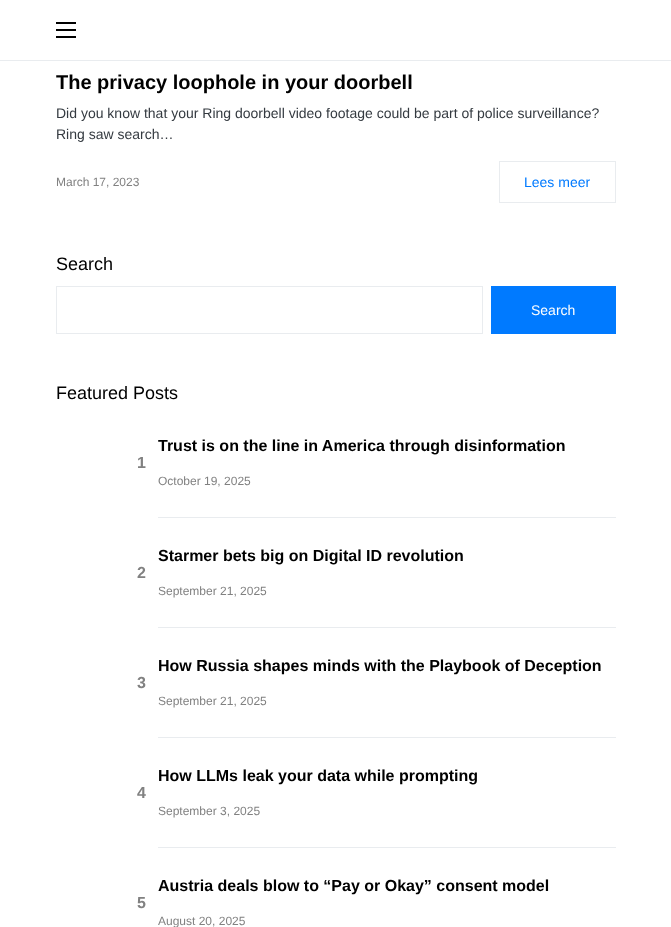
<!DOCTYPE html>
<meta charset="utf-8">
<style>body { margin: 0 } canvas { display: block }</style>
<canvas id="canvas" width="671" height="927"></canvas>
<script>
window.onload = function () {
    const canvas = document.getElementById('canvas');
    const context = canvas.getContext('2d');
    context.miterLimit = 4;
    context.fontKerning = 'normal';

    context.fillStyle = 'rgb(255, 255, 255)';
    context.fillRect(0, 0, 671, 927);
    context.fillStyle = 'rgb(233, 236, 239)';
    context.fillRect(0, 60, 671, 1);
    context.fillStyle = 'rgb(0, 0, 0)';
    context.fillRect(56, 22, 20, 2);
    context.fillRect(56, 29, 20, 2);
    context.fillRect(56, 36, 20, 2);
    context.strokeStyle = 'rgb(233, 236, 239)';
    context.strokeRect(499.5, 161.5, 116, 41);
    context.strokeRect(56.5, 286.5, 426, 47);
    context.fillStyle = 'rgb(0, 122, 255)';
    context.fillRect(491, 286, 125, 48);
    context.fillStyle = 'rgb(233, 236, 239)';
    context.fillRect(158, 517, 458, 1);
    context.fillRect(158, 627, 458, 1);
    context.fillRect(158, 737, 458, 1);
    context.fillRect(158, 847, 458, 1);
    context.font = 'bold 20px Liberation Sans';
    context.fillStyle = 'rgb(0, 0, 0)';
    context.fillText('The privacy loophole in your doorbell', 56, 89);
    context.font = '14px Liberation Sans';
    context.fillStyle = 'rgb(52, 58, 64)';
    context.fillText('Did you know that your Ring doorbell video footage could be part of police surveillance?', 56, 118);
    context.fillText('Ring saw search…', 56, 139);
    context.font = '12px Liberation Sans';
    context.fillStyle = 'rgb(129, 129, 129)';
    context.fillText('March 17, 2023', 56, 186);
    context.font = '14px Liberation Sans';
    context.fillStyle = 'rgb(0, 122, 255)';
    context.fillText('Lees meer', 524, 187);
    context.font = '18px Liberation Sans';
    context.fillStyle = 'rgb(0, 0, 0)';
    context.fillText('Search', 56, 270);
    context.font = '14px Liberation Sans';
    context.fillStyle = 'rgb(255, 255, 255)';
    context.fillText('Search', 531, 315);
    context.font = '18px Liberation Sans';
    context.fillStyle = 'rgb(0, 0, 0)';
    context.fillText('Featured Posts', 56, 399);
    context.font = 'bold 16px Liberation Sans';
    context.fillStyle = 'rgb(129, 129, 129)';
    context.fillText('1', 137, 468);
    context.fillStyle = 'rgb(0, 0, 0)';
    context.fillText('Trust is on the line in America through disinformation', 158, 451);
    context.font = '12px Liberation Sans';
    context.fillStyle = 'rgb(129, 129, 129)';
    context.fillText('October 19, 2025', 158, 485);
    context.font = 'bold 16px Liberation Sans';
    context.fillText('2', 137, 578);
    context.fillStyle = 'rgb(0, 0, 0)';
    context.fillText('Starmer bets big on Digital ID revolution', 158, 561);
    context.font = '12px Liberation Sans';
    context.fillStyle = 'rgb(129, 129, 129)';
    context.fillText('September 21, 2025', 158, 595);
    context.font = 'bold 16px Liberation Sans';
    context.fillText('3', 137, 688);
    context.fillStyle = 'rgb(0, 0, 0)';
    context.fillText('How Russia shapes minds with the Playbook of Deception', 158, 671);
    context.font = '12px Liberation Sans';
    context.fillStyle = 'rgb(129, 129, 129)';
    context.fillText('September 21, 2025', 158, 705);
    context.font = 'bold 16px Liberation Sans';
    context.fillText('4', 137, 798);
    context.fillStyle = 'rgb(0, 0, 0)';
    context.fillText('How LLMs leak your data while prompting', 158, 781);
    context.font = '12px Liberation Sans';
    context.fillStyle = 'rgb(129, 129, 129)';
    context.fillText('September 3, 2025', 158, 815);
    context.font = 'bold 16px Liberation Sans';
    context.fillText('5', 137, 908);
    context.fillStyle = 'rgb(0, 0, 0)';
    context.fillText('Austria deals blow to “Pay or Okay” consent model', 158, 891);
    context.font = '12px Liberation Sans';
    context.fillStyle = 'rgb(129, 129, 129)';
    context.fillText('August 20, 2025', 158, 925);
};
</script>
